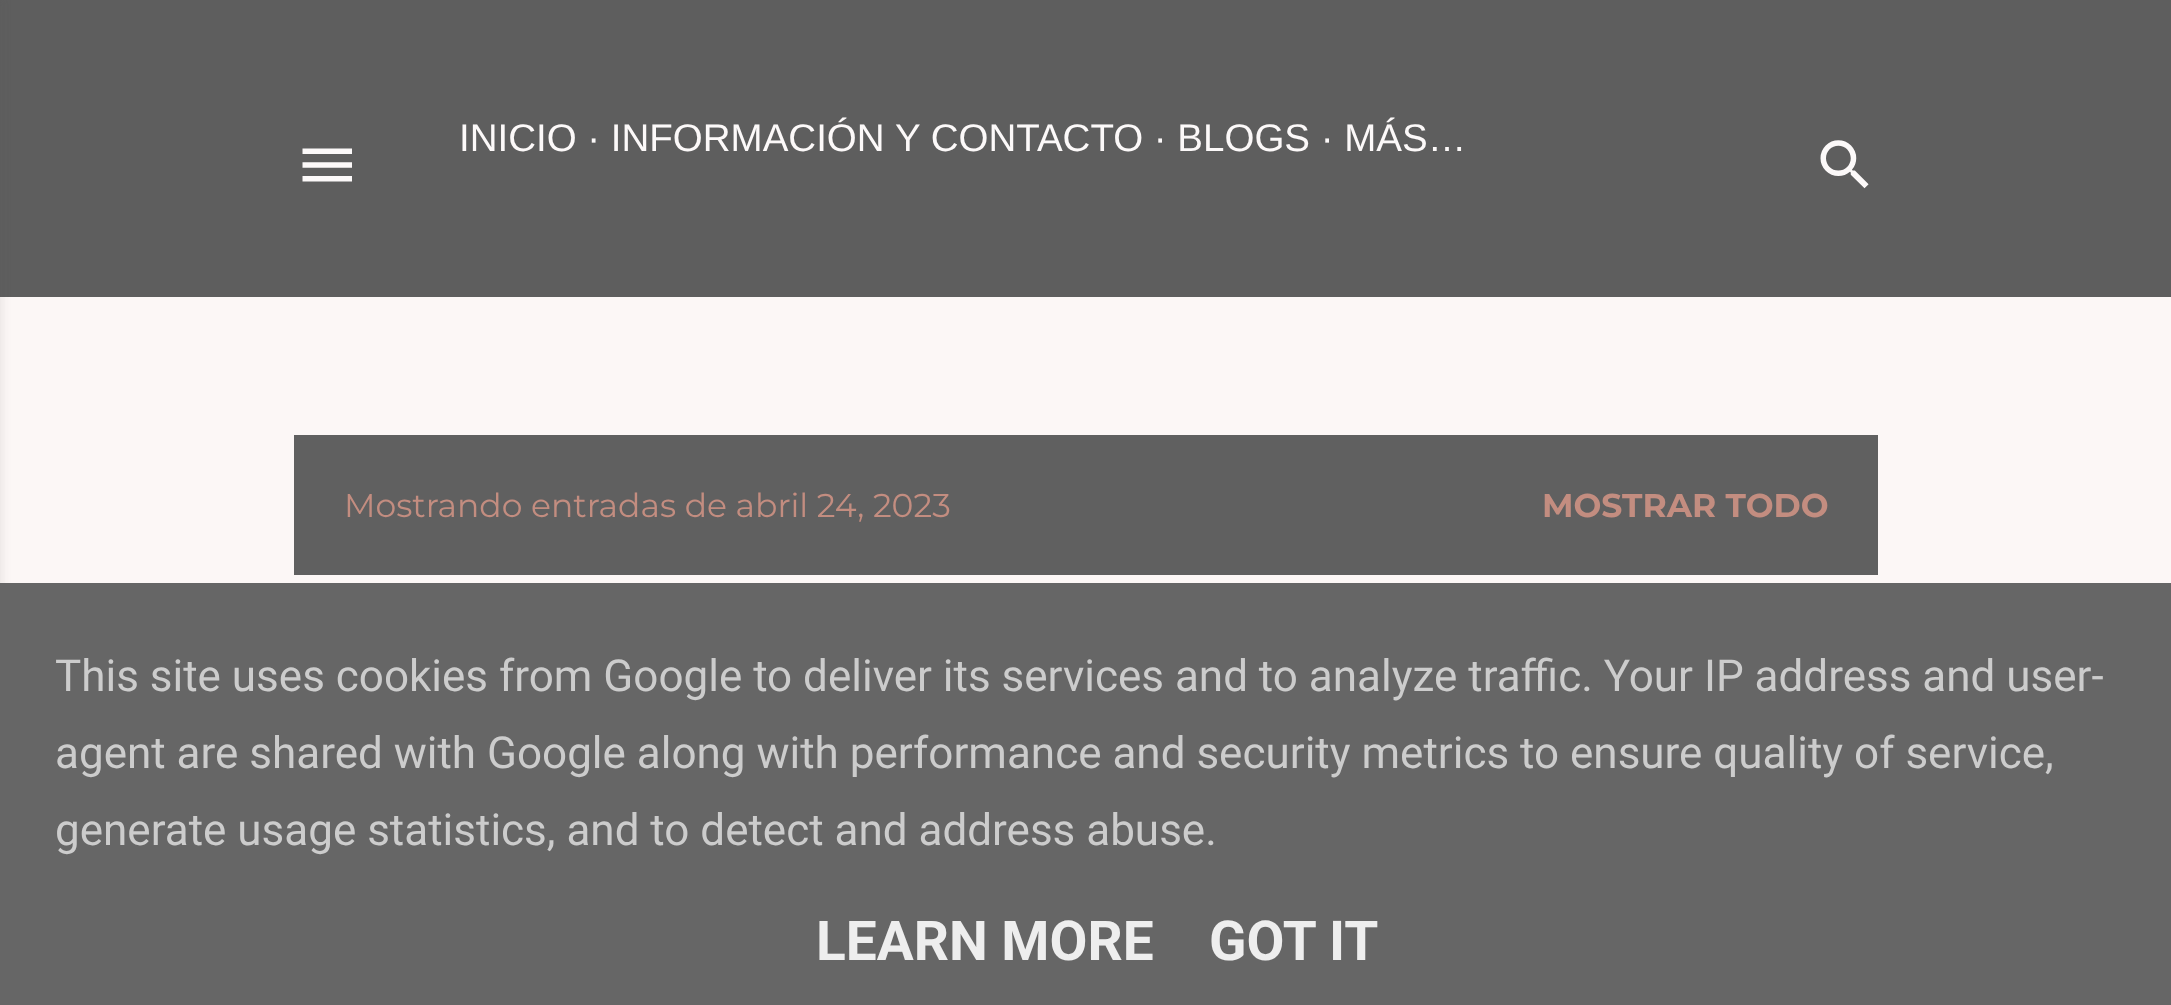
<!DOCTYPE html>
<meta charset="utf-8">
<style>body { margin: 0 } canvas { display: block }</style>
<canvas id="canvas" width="2171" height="1005"></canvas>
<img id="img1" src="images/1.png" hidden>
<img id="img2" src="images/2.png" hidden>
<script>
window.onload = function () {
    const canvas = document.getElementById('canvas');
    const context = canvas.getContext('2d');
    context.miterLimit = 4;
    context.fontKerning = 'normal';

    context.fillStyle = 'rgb(252, 247, 246)';
    context.fillRect(0, 0, 2171, 1005);
    context.fillStyle = 'rgb(94, 94, 94)';
    context.fillRect(0, 0, 2171, 297);
    context.fillStyle = 'rgba(93, 93, 93, 0.1)';
    context.filter = 'blur(4px)';
    context.beginPath();
    context.rect(-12, 0, 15, 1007);
    context.fill();
    context.filter = 'none';
    context.drawImage(document.getElementById('img1'), 302, 148, 50, 34);
    context.drawImage(document.getElementById('img2'), 1820, 140, 49, 49);
    context.fillStyle = 'rgb(96, 96, 96)';
    context.fillRect(294, 435, 1584, 140);
    context.fillStyle = 'rgb(102, 102, 102)';
    context.fillRect(0, 583, 2171, 422);
    context.font = '38.5px Liberation Sans';
    context.fillStyle = 'rgb(252, 249, 249)';
    context.fillText('INICIO · INFORMACIÓN', 459, 151);
    context.fillText('Y CONTACTO · BLOGS · MÁS…', 895, 151);
    context.font = '33px Montserrat';
    context.fillStyle = 'rgb(195, 141, 128)';
    context.fillText('Mostrando entradas de abril 24, 2023', 344, 517);
    context.font = 'bold 33px Montserrat';
    context.fillText('MOSTRAR TODO', 1542, 517);
    context.font = '44px Roboto';
    context.fillStyle = 'rgb(204, 204, 204)';
    context.fillText('This site uses cookies from Google to deliver its services and to analyze traffic. Your IP address and user-', 55, 691);
    context.fillText('agent are shared with Google along with performance and security metrics to ensure quality of service,', 55, 768);
    context.fillText('generate usage statistics, and to detect and address abuse.', 55, 845);
    context.font = 'bold 55px Roboto';
    context.fillStyle = 'rgb(238, 238, 238)';
    context.fillText('LEARN MORE', 816, 960);
    context.fillText('GOT IT', 1209, 960);
};
</script>
